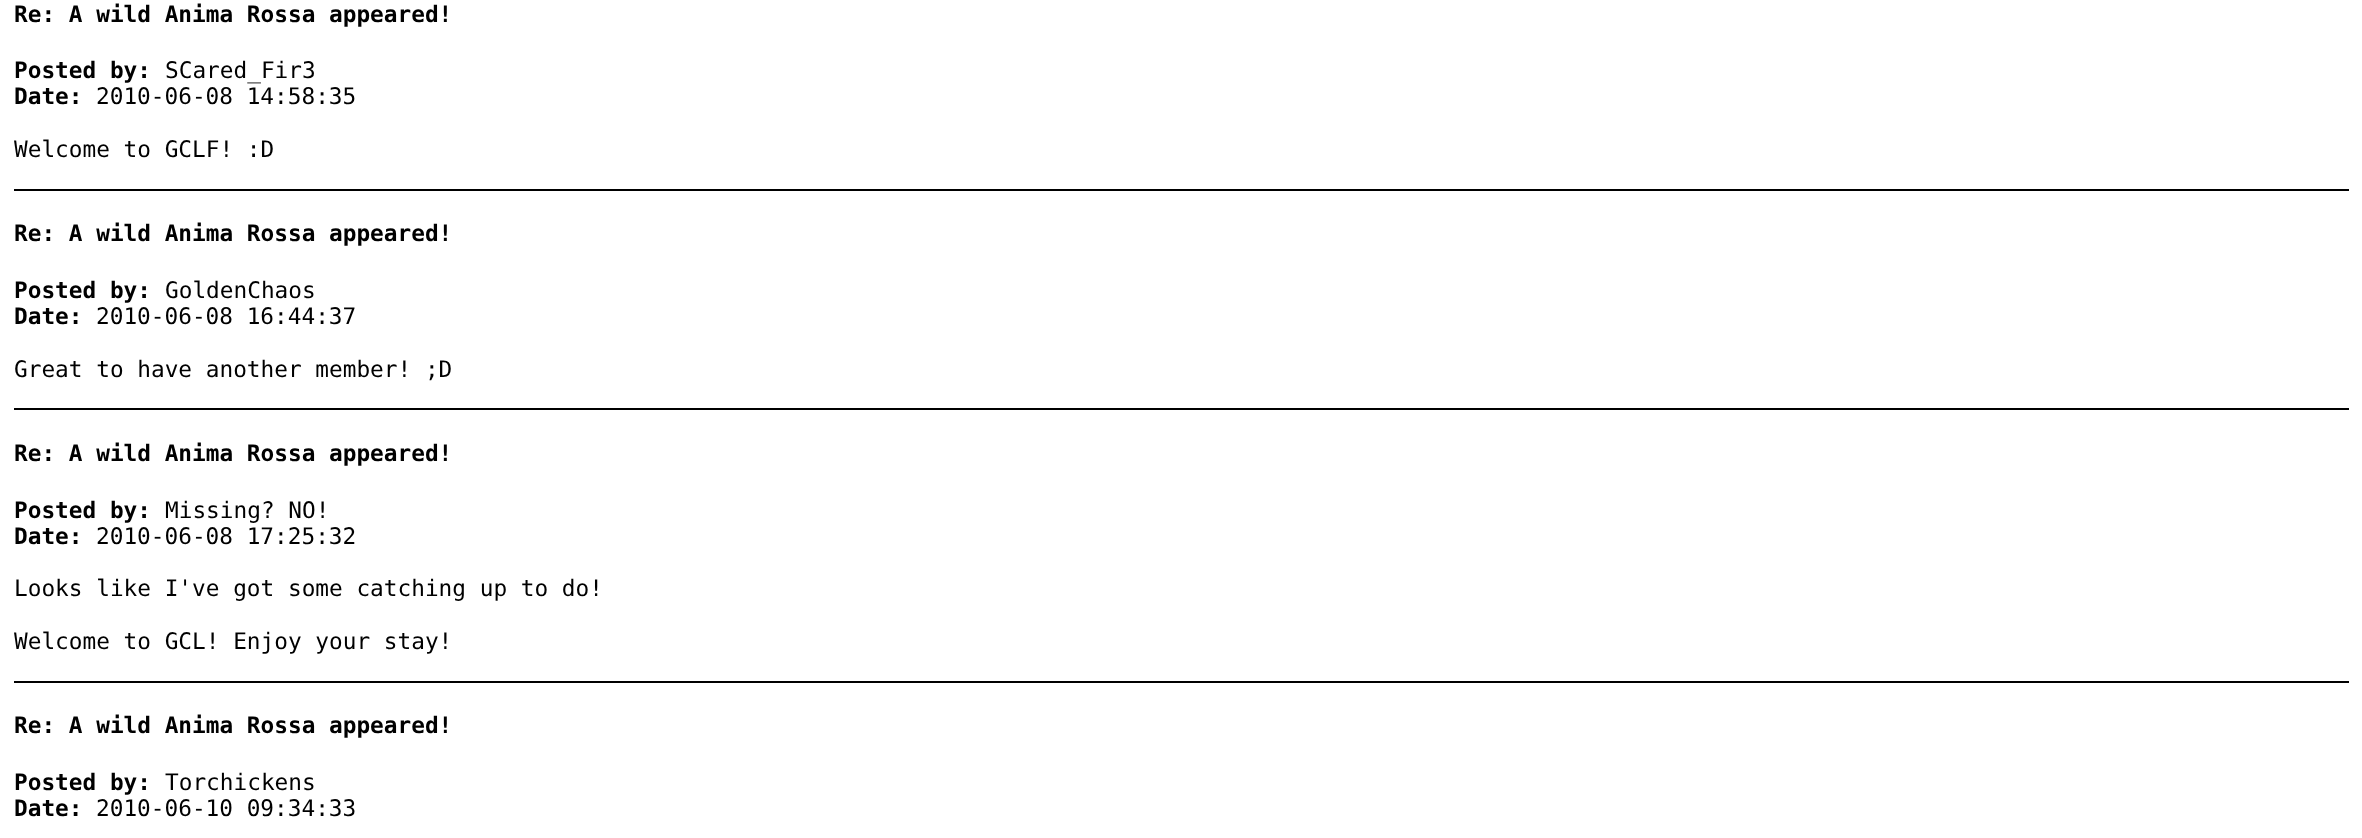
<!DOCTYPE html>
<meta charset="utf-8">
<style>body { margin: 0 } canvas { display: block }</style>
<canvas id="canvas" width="2362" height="838"></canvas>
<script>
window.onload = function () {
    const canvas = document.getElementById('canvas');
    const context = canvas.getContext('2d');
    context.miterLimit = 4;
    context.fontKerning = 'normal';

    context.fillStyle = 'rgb(255, 255, 255)';
    context.fillRect(0, 0, 2362, 838);
    context.fillStyle = 'rgb(0, 0, 0)';
    context.fillRect(14, 189, 2335, 2);
    context.fillRect(14, 408, 2335, 2);
    context.fillRect(14, 681, 2335, 2);
    context.font = 'bold 22.75px DejaVu Sans Mono';
    context.fillText('Re: A wild Anima Rossa appeared!', 14, 22);
    context.fillText('Posted by:', 14, 78);
    context.font = '22.75px DejaVu Sans Mono';
    context.fillText('SCared_Fir3', 165, 78);
    context.font = 'bold 22.75px DejaVu Sans Mono';
    context.fillText('Date:', 14, 104);
    context.font = '22.75px DejaVu Sans Mono';
    context.fillText('2010-06-08 14:58:35', 96, 104);
    context.fillText('Welcome to GCLF! :D', 14, 157);
    context.font = 'bold 22.75px DejaVu Sans Mono';
    context.fillText('Re: A wild Anima Rossa appeared!', 14, 241);
    context.fillText('Posted by:', 14, 298);
    context.font = '22.75px DejaVu Sans Mono';
    context.fillText('GoldenChaos', 165, 298);
    context.font = 'bold 22.75px DejaVu Sans Mono';
    context.fillText('Date:', 14, 324);
    context.font = '22.75px DejaVu Sans Mono';
    context.fillText('2010-06-08 16:44:37', 96, 324);
    context.fillText('Great to have another member! ;D', 14, 377);
    context.font = 'bold 22.75px DejaVu Sans Mono';
    context.fillText('Re: A wild Anima Rossa appeared!', 14, 461);
    context.fillText('Posted by:', 14, 518);
    context.font = '22.75px DejaVu Sans Mono';
    context.fillText('Missing? NO!', 165, 518);
    context.font = 'bold 22.75px DejaVu Sans Mono';
    context.fillText('Date:', 14, 544);
    context.font = '22.75px DejaVu Sans Mono';
    context.fillText('2010-06-08 17:25:32', 96, 544);
    context.fillText('Looks like I\'ve got some catching up to do!', 14, 596);
    context.fillText('Welcome to GCL! Enjoy your stay!', 14, 649);
    context.font = 'bold 22.75px DejaVu Sans Mono';
    context.fillText('Re: A wild Anima Rossa appeared!', 14, 733);
    context.fillText('Posted by:', 14, 790);
    context.font = '22.75px DejaVu Sans Mono';
    context.fillText('Torchickens', 165, 790);
    context.font = 'bold 22.75px DejaVu Sans Mono';
    context.fillText('Date:', 14, 816);
    context.font = '22.75px DejaVu Sans Mono';
    context.fillText('2010-06-10 09:34:33', 96, 816);
};
</script>
